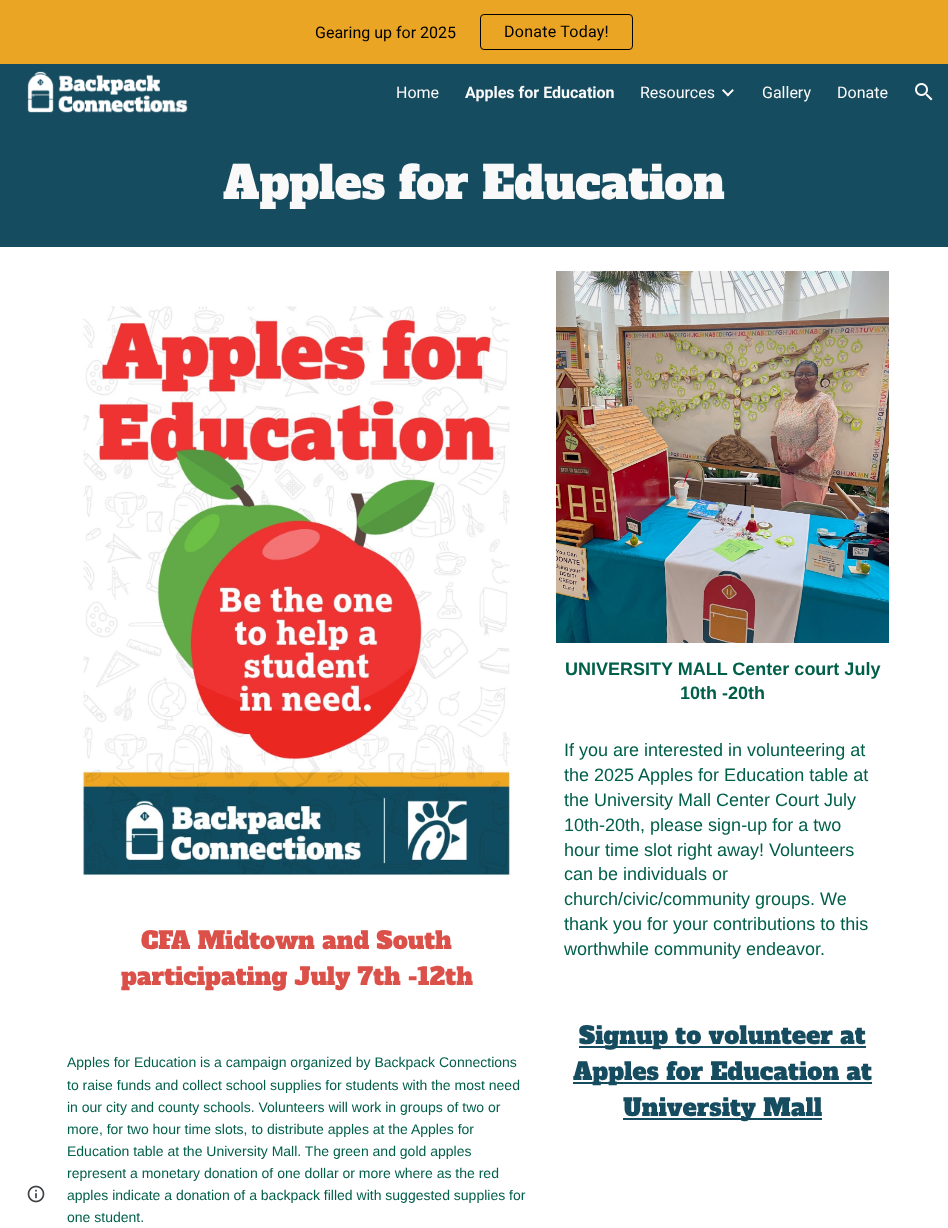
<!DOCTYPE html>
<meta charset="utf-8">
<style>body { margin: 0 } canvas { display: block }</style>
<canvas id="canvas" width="948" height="1228"></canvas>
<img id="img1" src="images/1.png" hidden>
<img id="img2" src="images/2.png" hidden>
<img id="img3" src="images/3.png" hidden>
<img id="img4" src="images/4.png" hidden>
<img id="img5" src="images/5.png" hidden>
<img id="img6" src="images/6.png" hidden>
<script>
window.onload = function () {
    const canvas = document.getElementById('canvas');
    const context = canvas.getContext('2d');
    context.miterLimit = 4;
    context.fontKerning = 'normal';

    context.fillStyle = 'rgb(255, 255, 255)';
    context.fillRect(0, 0, 948, 1228);
    context.fillStyle = 'rgb(234, 165, 36)';
    context.fillRect(0, 0, 948, 64);
    context.beginPath();
    context.roundRect(480.5, 14.5, 152, 35, 3.5);
    context.strokeStyle = 'rgb(0, 0, 0)';
    context.stroke();
    context.fillStyle = 'rgb(22, 76, 95)';
    context.fillRect(0, 64, 948, 183);
    context.drawImage(document.getElementById('img1'), 27, 71, 161, 42);
    context.drawImage(document.getElementById('img2'), 722, 89, 12, 8);
    context.drawImage(document.getElementById('img3'), 915, 83, 18, 18);
    context.drawImage(document.getElementById('img4'), 27, 1185, 18, 18);
    context.drawImage(document.getElementById('img5'), 82, 306, 429, 570);
    context.drawImage(document.getElementById('img6'), 556, 271, 333, 372);
    context.fillRect(579, 1046, 287, 2);
    context.fillRect(573, 1082, 299, 2);
    context.fillRect(623, 1118, 199, 2);
    context.font = '16px Roboto';
    context.fillStyle = 'rgb(0, 0, 0)';
    context.fillText('Gearing up for 2025', 315, 38);
    context.letterSpacing = '0.25px';
    context.fillText('Donate Today!', 504, 37);
    context.letterSpacing = '0px';
    context.fillStyle = 'rgb(249, 249, 249)';
    context.fillText('Home', 396, 98);
    context.font = 'bold 16px Roboto';
    context.fillText('Apples for Education', 465, 98);
    context.font = '16px Roboto';
    context.fillText('Resources', 640, 98);
    context.fillText('Gallery', 762, 98);
    context.fillText('Donate', 837, 98);
    context.font = '45.25px Alfa Slab One';
    context.fillText('Apples for Education', 223, 199);
    context.font = '24px Alfa Slab One';
    context.fillStyle = 'rgb(219, 81, 74)';
    context.fillText('CFA Midtown and South', 141, 949);
    context.fillText('participating July 7th -12th', 121, 985);
    context.font = '14px Liberation Sans';
    context.fillStyle = 'rgb(0, 95, 73)';
    context.fillText('Apples for Education is a campaign organized by Backpack Connections', 67, 1067);
    context.fillText('to raise funds and collect school supplies for students with the most need', 67, 1090);
    context.fillText('in our city and county schools. Volunteers will work in groups of two or', 67, 1112);
    context.fillText('more, for two hour time slots, to distribute apples at the Apples for', 67, 1134);
    context.fillText('Education table at the University Mall. The green and gold apples', 67, 1156);
    context.fillText('represent a monetary donation of one dollar or more where as the red', 67, 1178);
    context.fillText('apples indicate a donation of a backpack filled with suggested supplies for', 67, 1200);
    context.fillText('one student.', 67, 1222);
    context.font = 'bold 18px Liberation Sans';
    context.fillText('UNIVERSITY MALL Center court July', 565, 675);
    context.fillText('10th -20th', 680, 699);
    context.font = '18px Liberation Sans';
    context.fillText('If you are interested in volunteering at', 564, 756);
    context.fillText('the 2025 Apples for Education table at', 564, 781);
    context.fillText('the University Mall Center Court July', 564, 806);
    context.fillText('10th-20th, please sign-up for a two', 564, 831);
    context.fillText('hour time slot right away! Volunteers', 564, 856);
    context.fillText('can be individuals or', 564, 880);
    context.fillText('church/civic/community groups. We', 564, 905);
    context.fillText('thank you for your contributions to this', 564, 930);
    context.fillText('worthwhile community endeavor.', 564, 955);
    context.font = '24px Alfa Slab One';
    context.fillStyle = 'rgb(22, 76, 95)';
    context.fillText('Signup to volunteer at', 579, 1044);
    context.fillText('Apples for Education at', 573, 1080);
    context.fillText('University Mall', 623, 1116);
};
</script>
